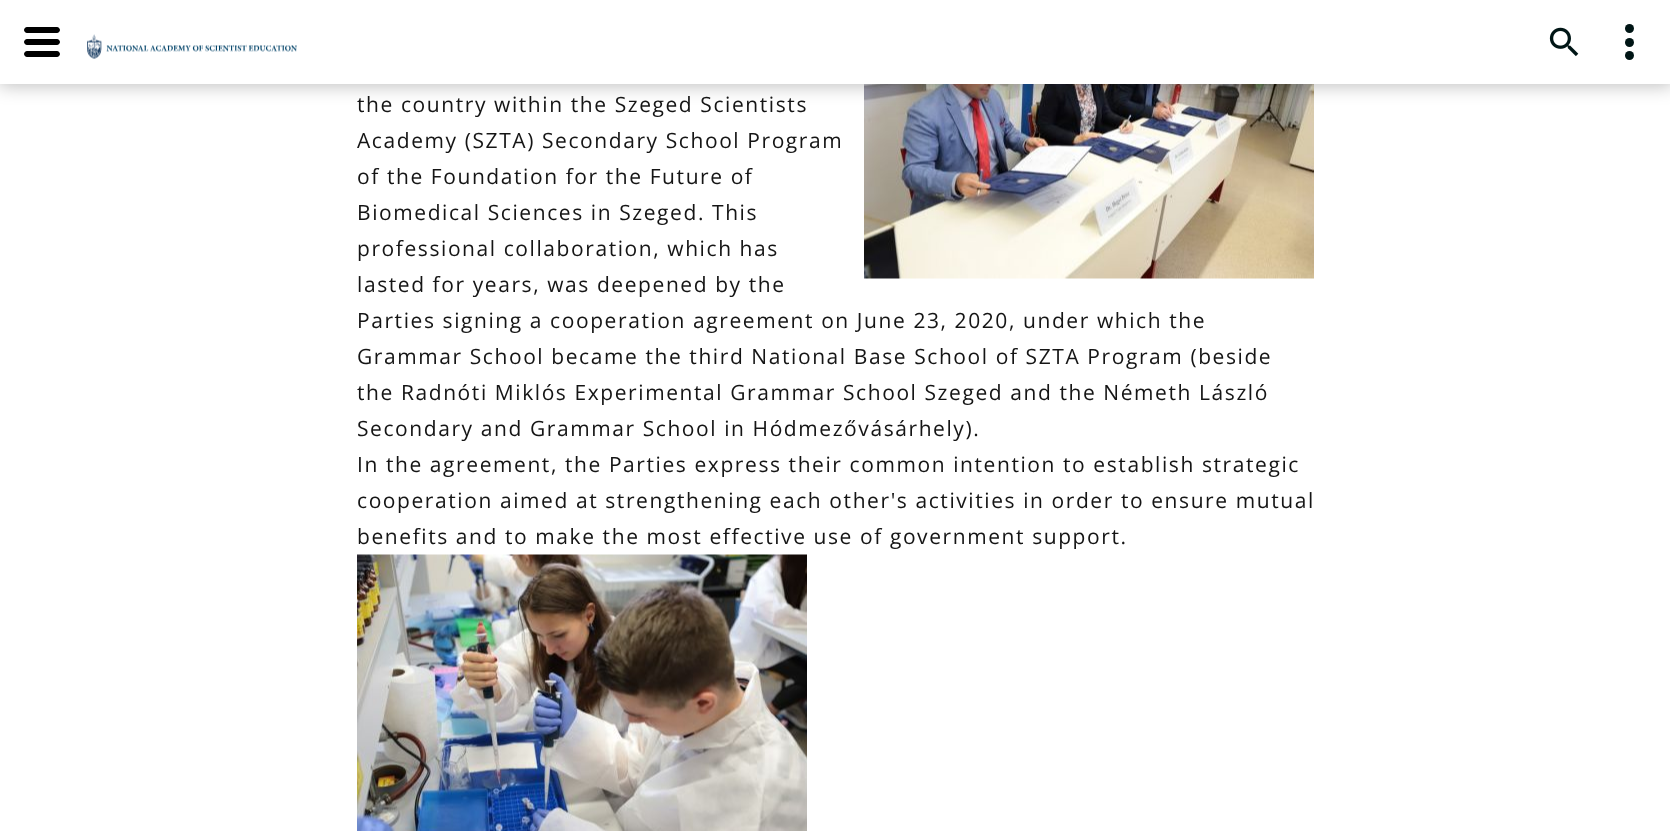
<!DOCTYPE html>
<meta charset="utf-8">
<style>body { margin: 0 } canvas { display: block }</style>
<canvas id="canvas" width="1670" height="831"></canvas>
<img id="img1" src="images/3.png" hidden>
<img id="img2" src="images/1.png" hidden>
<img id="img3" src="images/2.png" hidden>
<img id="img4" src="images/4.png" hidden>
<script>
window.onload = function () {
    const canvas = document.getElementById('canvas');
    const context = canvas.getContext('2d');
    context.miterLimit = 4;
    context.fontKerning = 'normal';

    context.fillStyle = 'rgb(255, 255, 255)';
    context.fillRect(0, 0, 1670, 831);
    context.drawImage(document.getElementById('img1'), 864, 84, 450, 195);
    context.fillStyle = 'rgba(0, 0, 0, 0.25)';
    context.filter = 'blur(9px)';
    context.beginPath();
    context.rect(-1, -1, 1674, 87);
    context.fill();
    context.filter = 'none';
    context.fillStyle = 'rgb(255, 255, 255)';
    context.fillRect(0, 0, 1670, 84);
    context.fillStyle = 'rgb(0, 0, 0)';
    context.beginPath();
    context.moveTo(57, 45);
    context.lineTo(27, 45);
    context.bezierCurveTo(25.5, 45, 24, 43.5, 24, 42);
    context.bezierCurveTo(24, 40.5, 25.5, 39, 27, 39);
    context.lineTo(57, 39);
    context.bezierCurveTo(58.5, 39, 60, 40.5, 60, 42);
    context.bezierCurveTo(60, 43.5, 58.5, 45, 57, 45);
    context.closePath();
    context.moveTo(57, 57);
    context.lineTo(27, 57);
    context.bezierCurveTo(25.5, 57, 24, 55.5, 24, 54);
    context.bezierCurveTo(24, 52.5, 25.5, 51, 27, 51);
    context.lineTo(57, 51);
    context.bezierCurveTo(58.5, 51, 60, 52.5, 60, 54);
    context.bezierCurveTo(60, 55.5, 58.5, 57, 57, 57);
    context.closePath();
    context.moveTo(57, 33);
    context.lineTo(27, 33);
    context.bezierCurveTo(25.5, 33, 24, 31.5, 24, 30);
    context.bezierCurveTo(24, 28.5, 25.5, 27, 27, 27);
    context.lineTo(57, 27);
    context.bezierCurveTo(58.5, 27, 60, 28.5, 60, 30);
    context.bezierCurveTo(60, 31.5, 58.5, 33, 57, 33);
    context.closePath();
    context.fill();
    context.drawImage(document.getElementById('img2'), 87, 34, 210, 25);
    context.drawImage(document.getElementById('img3'), 1549, 27, 30, 30);
    context.fillStyle = 'rgb(0, 21, 21)';
    context.beginPath();
    context.arc(1629.5, 42.5, 4.5, 0, 2 * Math.PI);
    context.fill();
    context.beginPath();
    context.arc(1629.5, 28.5, 4.5, 0, 2 * Math.PI);
    context.fill();
    context.beginPath();
    context.arc(1629.5, 55.5, 4.5, 0, 2 * Math.PI);
    context.fill();
    context.drawImage(document.getElementById('img4'), 357, 554, 450, 277);
    context.letterSpacing = '1.58px';
    context.font = '21px Open Sans';
    context.fillStyle = 'rgb(21, 21, 21)';
    context.fillText('the country within the Szeged Scientists', 357, 112);
    context.fillText('Academy (SZTA) Secondary School Program', 357, 148);
    context.fillText('of the Foundation for the Future of', 357, 184);
    context.fillText('Biomedical Sciences in Szeged. This', 357, 220);
    context.fillText('professional collaboration, which has', 357, 256);
    context.fillText('lasted for years, was deepened by the', 357, 292);
    context.fillText('Parties signing a cooperation agreement on June 23, 2020, under which the', 357, 328);
    context.fillText('Grammar School became the third National Base School of SZTA Program (beside', 357, 364);
    context.fillText('the Radnóti Miklós Experimental Grammar School Szeged and the Németh László', 357, 400);
    context.fillText('Secondary and Grammar School in Hódmezővásárhely).', 357, 436);
    context.fillText('In the agreement, the Parties express their common intention to establish strategic', 357, 472);
    context.fillText('cooperation aimed at strengthening each other\'s activities in order to ensure mutual', 357, 508);
    context.fillText('benefits and to make the most effective use of government support.', 357, 544);
};
</script>
